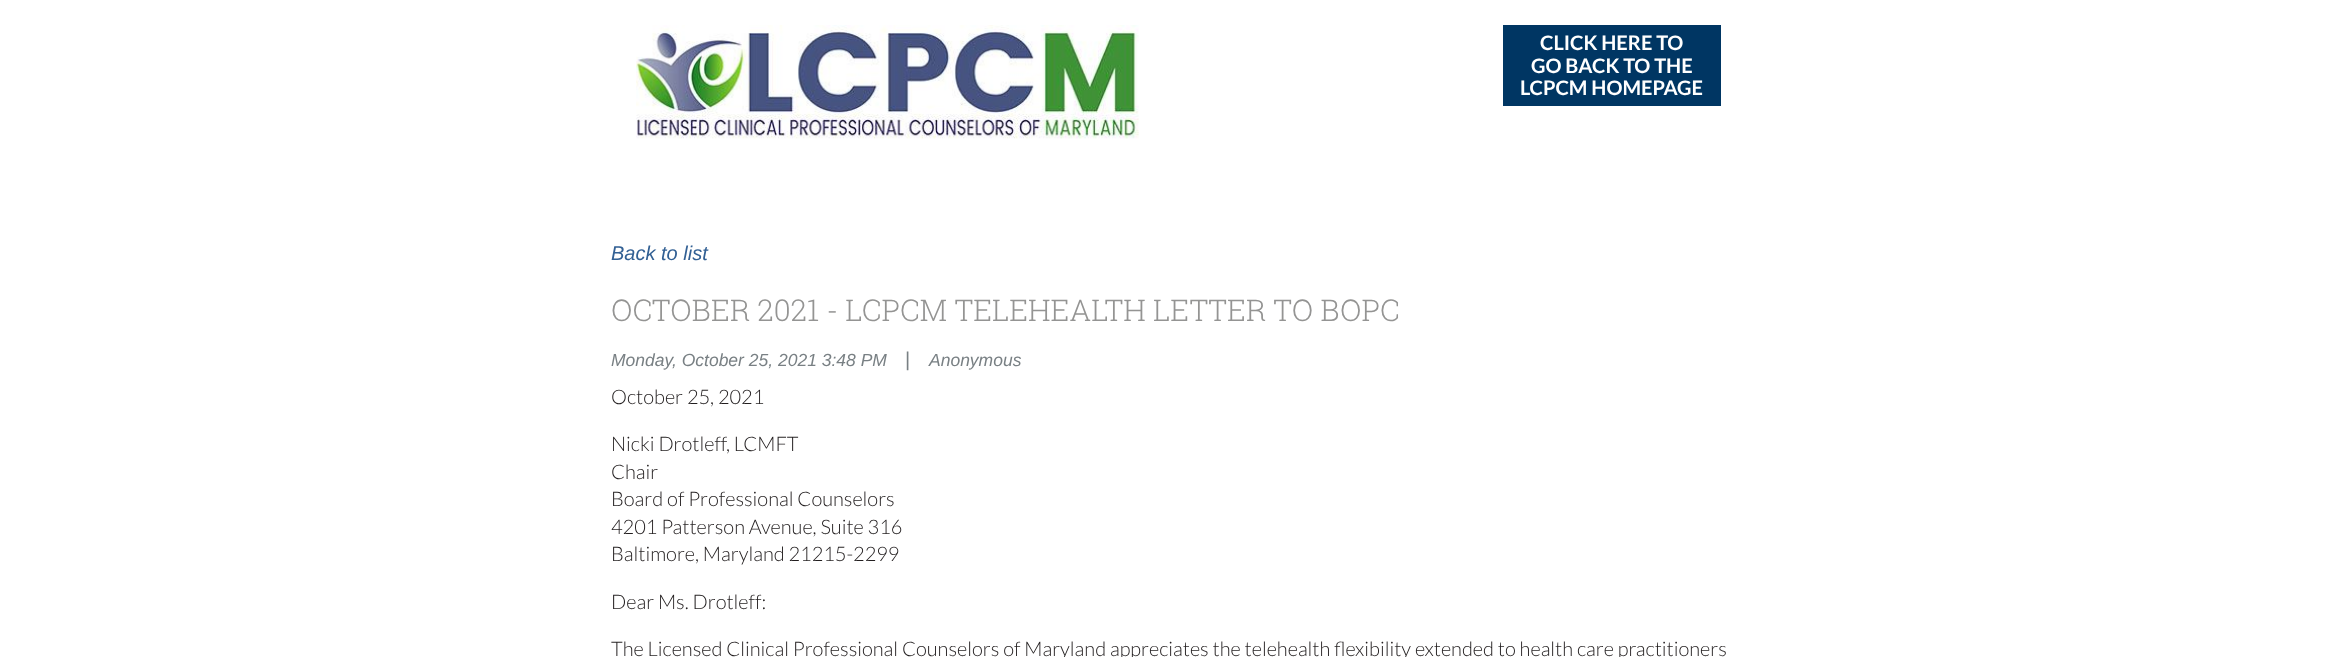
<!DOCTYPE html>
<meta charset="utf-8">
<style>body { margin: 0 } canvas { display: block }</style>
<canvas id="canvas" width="2347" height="657"></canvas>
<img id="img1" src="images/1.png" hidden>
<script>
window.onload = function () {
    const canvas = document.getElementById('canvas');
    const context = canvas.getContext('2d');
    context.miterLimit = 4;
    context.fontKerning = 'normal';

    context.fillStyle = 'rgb(255, 255, 255)';
    context.fillRect(0, 0, 2347, 657);
    context.drawImage(document.getElementById('img1'), 636, 25, 503, 114);
    context.fillStyle = 'rgb(0, 54, 99)';
    context.fillRect(1503, 25, 218, 81);
    context.font = 'bold 20px Lato';
    context.fillStyle = 'rgb(255, 255, 255)';
    context.fillText('CLICK HERE TO', 1540, 50);
    context.fillText('GO BACK TO THE', 1531, 73);
    context.fillText('LCPCM HOMEPAGE', 1520, 95);
    context.font = 'italic 20px Liberation Sans';
    context.fillStyle = 'rgb(50, 96, 148)';
    context.fillText('Back to list', 611, 260);
    context.font = '300 30px Roboto Slab';
    context.fillStyle = 'rgb(148, 148, 147)';
    context.fillText('OCTOBER 2021 - LCPCM TELEHEALTH LETTER TO BOPC', 611, 321);
    context.font = 'italic 17.5px Liberation Sans';
    context.fillStyle = 'rgb(121, 128, 132)';
    context.fillText('Monday, October 25, 2021 3:48 PM', 611, 366);
    context.font = '20px Liberation Sans';
    context.fillText('|', 905, 366);
    context.font = 'italic 17.5px Liberation Sans';
    context.fillText('Anonymous', 929, 366);
    context.font = '300 20px Lato';
    context.fillStyle = 'rgb(34, 30, 31)';
    context.fillText('October 25, 2021', 611, 404);
    context.fillText('Nicki Drotleff, LCMFT', 611, 451);
    context.fillText('Chair', 611, 479);
    context.fillText('Board of Professional Counselors', 611, 506);
    context.fillText('4201 Patterson Avenue, Suite 316', 611, 534);
    context.fillText('Baltimore, Maryland 21215-2299', 611, 561);
    context.fillText('Dear Ms. Drotleff:', 611, 609);
    context.fillText('The Licensed Clinical Professional Counselors of Maryland appreciates the telehealth flexibility extended to health care practitioners', 611, 656);
};
</script>
